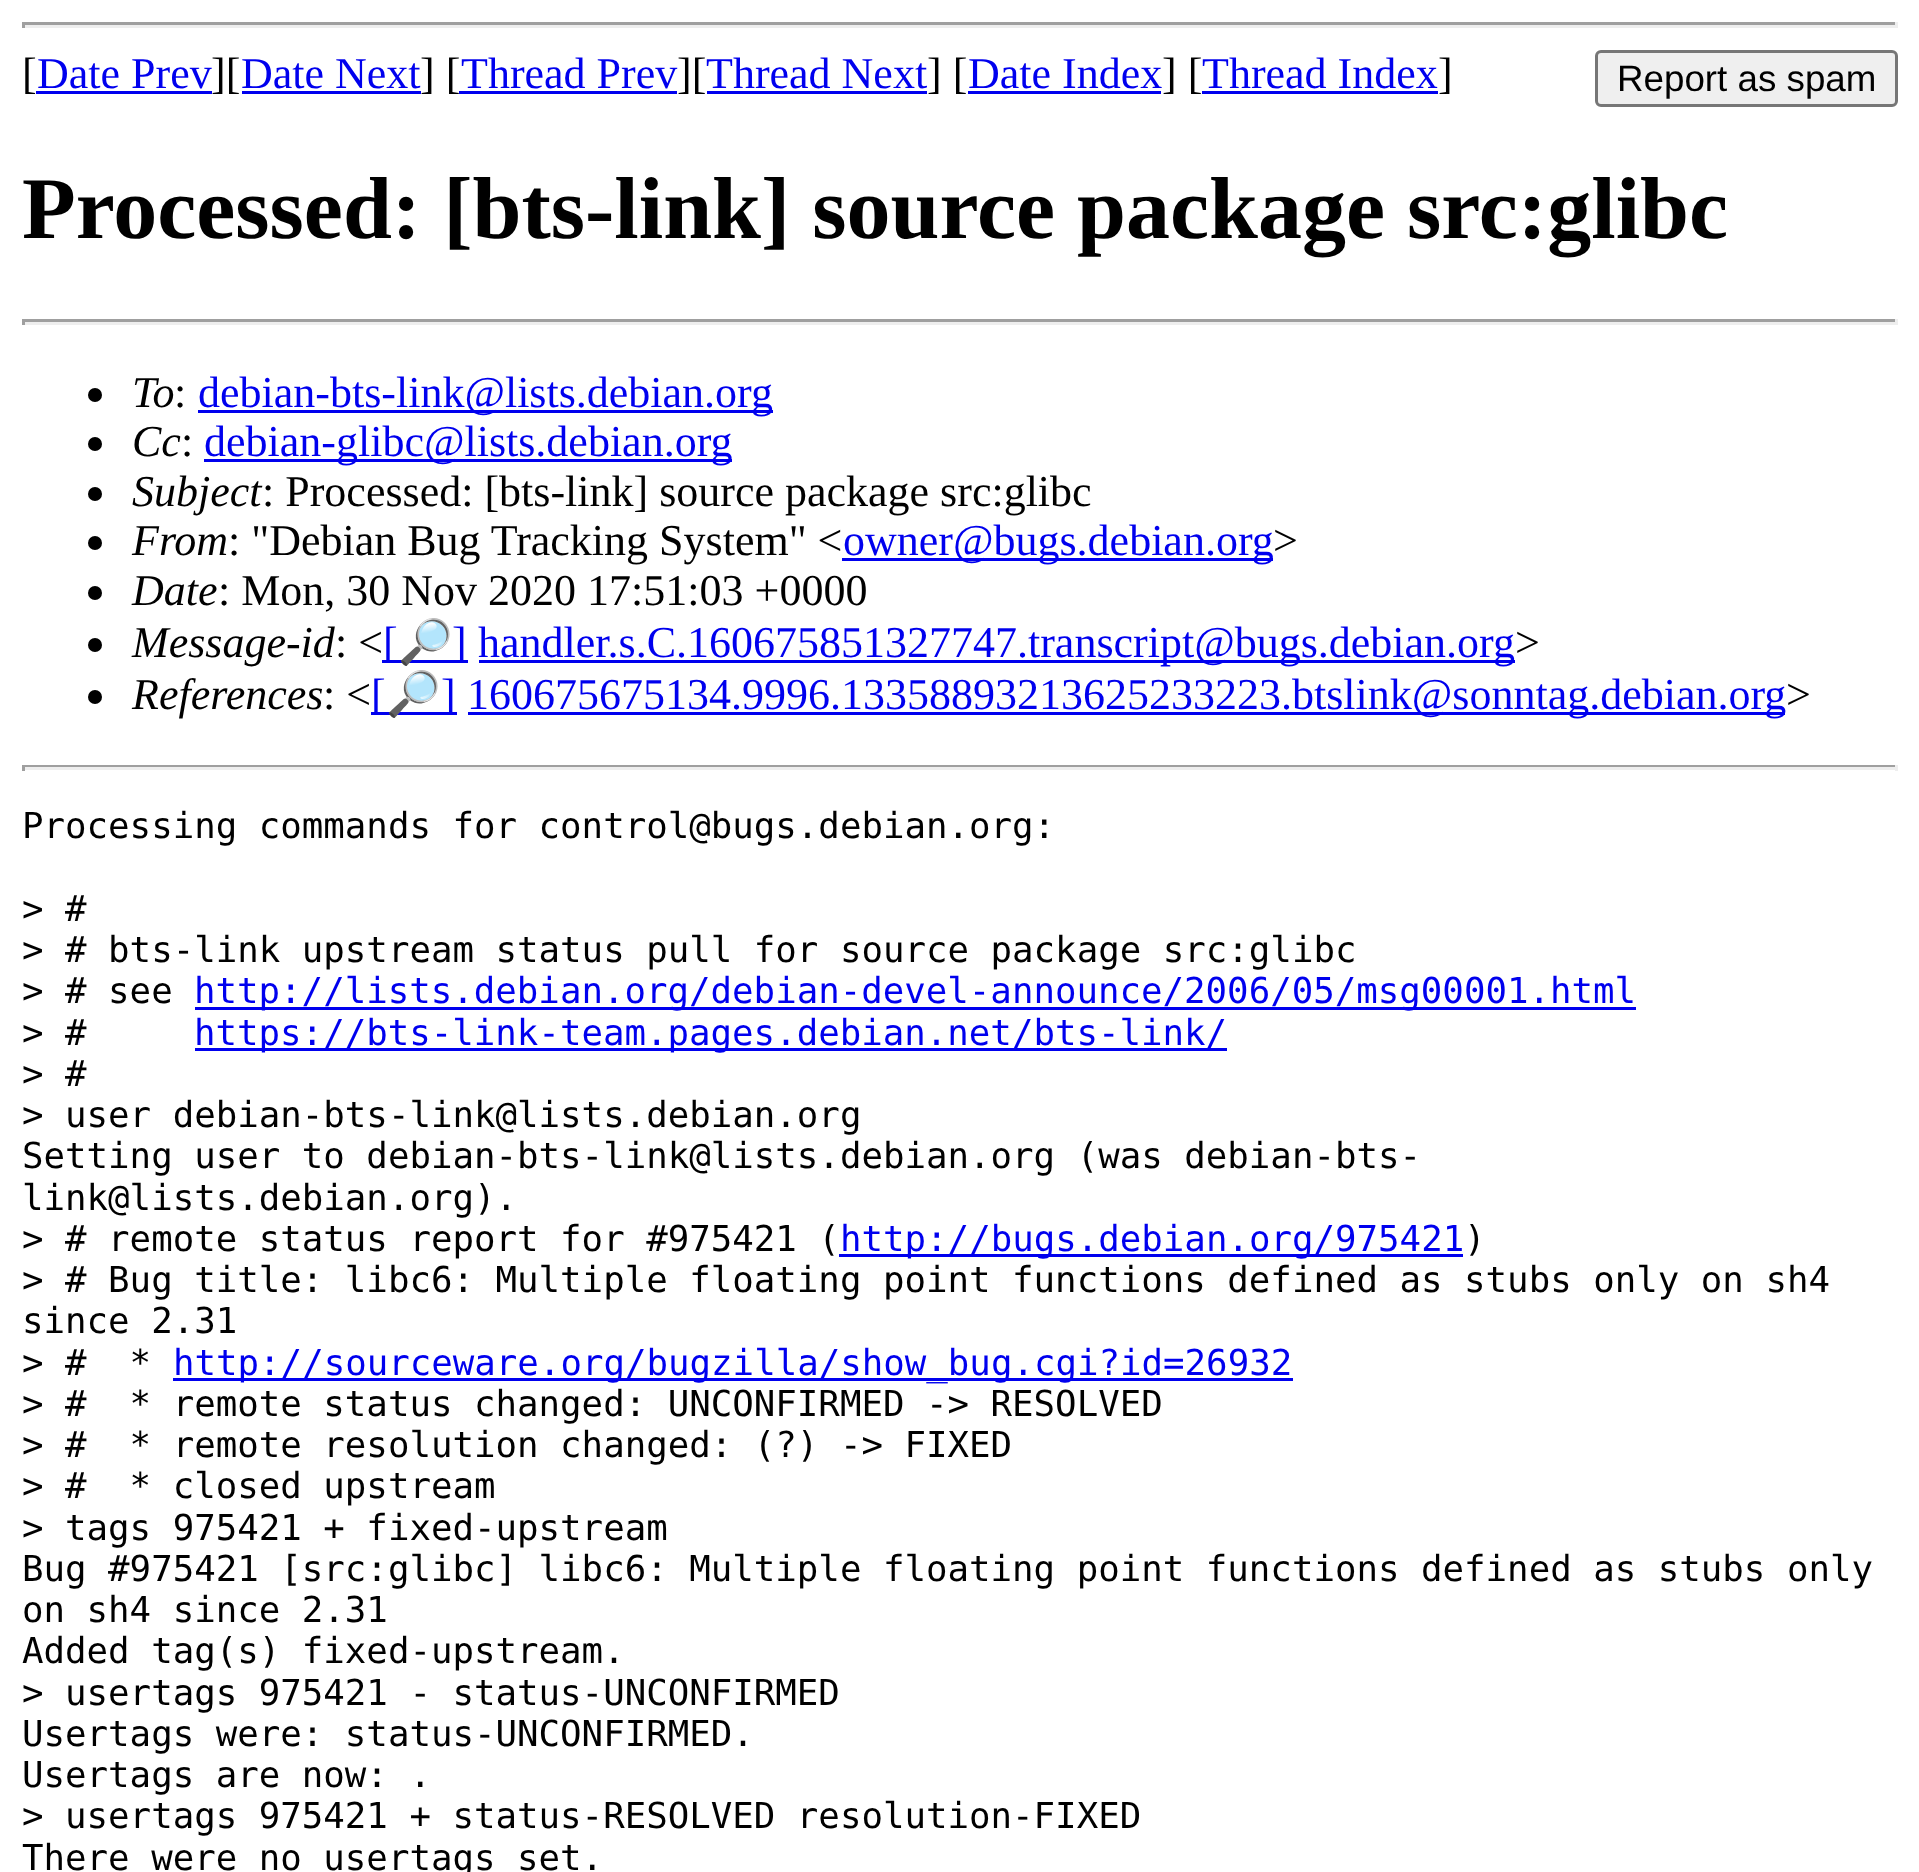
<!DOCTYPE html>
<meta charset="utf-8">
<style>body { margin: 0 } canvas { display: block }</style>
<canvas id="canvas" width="1919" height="1872"></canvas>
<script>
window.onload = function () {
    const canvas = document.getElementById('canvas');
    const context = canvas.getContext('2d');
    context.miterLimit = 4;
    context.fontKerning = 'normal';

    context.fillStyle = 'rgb(255, 255, 255)';
    context.fillRect(0, 0, 1919, 1872);
    context.fillStyle = 'rgb(159, 159, 159)';
    context.fillRect(22, 22, 1876, 3);
    context.fillStyle = 'rgb(238, 238, 238)';
    context.fillRect(1895, 22, 3, 6);
    context.fillRect(22, 25, 1876, 3);
    context.fillStyle = 'rgb(159, 159, 159)';
    context.fillRect(22, 22, 3, 6);
    context.fillStyle = 'rgb(0, 0, 238)';
    context.fillRect(36, 91, 176, 3);
    context.fillRect(242, 91, 179, 3);
    context.fillRect(459, 91, 218, 3);
    context.fillRect(707, 91, 220, 3);
    context.fillRect(968, 91, 193, 3);
    context.fillRect(1202, 91, 236, 3);
    context.fillStyle = 'rgb(239, 239, 239)';
    context.beginPath();
    context.roundRect(1596.5, 51.5, 300, 54, 4.5);
    context.fill();
    context.strokeStyle = 'rgb(118, 118, 118)';
    context.lineWidth = 3;
    context.stroke();
    context.fillStyle = 'rgb(159, 159, 159)';
    context.fillRect(22, 319, 1876, 3);
    context.fillStyle = 'rgb(238, 238, 238)';
    context.fillRect(1895, 319, 3, 6);
    context.fillRect(22, 322, 1876, 3);
    context.fillStyle = 'rgb(159, 159, 159)';
    context.fillRect(22, 319, 3, 6);
    context.fillStyle = 'rgb(0, 0, 0)';
    context.beginPath();
    context.arc(95, 395, 7, 0, 2 * Math.PI);
    context.fill();
    context.fillStyle = 'rgb(0, 0, 238)';
    context.fillRect(198, 410, 575, 3);
    context.fillStyle = 'rgb(0, 0, 0)';
    context.beginPath();
    context.arc(95, 444, 7, 0, 2 * Math.PI);
    context.fill();
    context.fillStyle = 'rgb(0, 0, 238)';
    context.fillRect(204, 459, 528, 3);
    context.fillStyle = 'rgb(0, 0, 0)';
    context.beginPath();
    context.arc(95, 494, 7, 0, 2 * Math.PI);
    context.fill();
    context.beginPath();
    context.arc(95, 543, 7, 0, 2 * Math.PI);
    context.fill();
    context.fillStyle = 'rgb(0, 0, 238)';
    context.fillRect(842, 558, 431, 3);
    context.fillStyle = 'rgb(0, 0, 0)';
    context.beginPath();
    context.arc(95, 593, 7, 0, 2 * Math.PI);
    context.fill();
    context.beginPath();
    context.arc(95, 645, 7, 0, 2 * Math.PI);
    context.fill();
    context.fillStyle = 'rgb(0, 0, 238)';
    context.fillRect(382, 660, 86, 3);
    context.fillRect(479, 660, 1036, 3);
    context.fillStyle = 'rgb(0, 0, 0)';
    context.beginPath();
    context.arc(95, 697, 7, 0, 2 * Math.PI);
    context.fill();
    context.fillStyle = 'rgb(0, 0, 238)';
    context.fillRect(371, 712, 86, 3);
    context.fillRect(468, 712, 1317, 3);
    context.fillStyle = 'rgb(159, 159, 159)';
    context.fillRect(22, 765, 1876, 2);
    context.fillStyle = 'rgb(238, 238, 238)';
    context.fillRect(1895, 765, 3, 6);
    context.fillRect(22, 767, 1876, 3);
    context.fillStyle = 'rgb(159, 159, 159)';
    context.fillRect(22, 765, 3, 6);
    context.fillStyle = 'rgb(0, 0, 238)';
    context.fillRect(195, 1007, 1441, 3);
    context.fillRect(195, 1048, 1032, 3);
    context.fillRect(839, 1254, 624, 3);
    context.fillRect(173, 1378, 1120, 3);
    context.font = '44px Liberation Serif';
    context.fillStyle = 'rgb(0, 0, 0)';
    context.fillText('[', 22, 88);
    context.fillStyle = 'rgb(0, 0, 238)';
    context.fillText('Date Prev', 37, 88);
    context.fillStyle = 'rgb(0, 0, 0)';
    context.fillText('][', 211, 88);
    context.fillStyle = 'rgb(0, 0, 238)';
    context.fillText('Date Next', 241, 88);
    context.fillStyle = 'rgb(0, 0, 0)';
    context.fillText('] [', 420, 88);
    context.fillStyle = 'rgb(0, 0, 238)';
    context.fillText('Thread Prev', 461, 88);
    context.fillStyle = 'rgb(0, 0, 0)';
    context.fillText('][', 677, 88);
    context.fillStyle = 'rgb(0, 0, 238)';
    context.fillText('Thread Next', 706, 88);
    context.fillStyle = 'rgb(0, 0, 0)';
    context.fillText('] [', 927, 88);
    context.fillStyle = 'rgb(0, 0, 238)';
    context.fillText('Date Index', 968, 88);
    context.fillStyle = 'rgb(0, 0, 0)';
    context.fillText('] [', 1162, 88);
    context.fillStyle = 'rgb(0, 0, 238)';
    context.fillText('Thread Index', 1202, 88);
    context.fillStyle = 'rgb(0, 0, 0)';
    context.fillText(']', 1438, 88);
    context.font = '36.75px Liberation Sans';
    context.fillText('Report as spam', 1617, 91);
    context.font = 'bold 88px Liberation Serif';
    context.fillText('Processed: [bts-link] source package src:glibc', 22, 238);
    context.font = 'italic 44px Liberation Serif';
    context.fillText('To', 132, 407);
    context.font = '44px Liberation Serif';
    context.fillText(':', 174, 407);
    context.fillStyle = 'rgb(0, 0, 238)';
    context.fillText('debian-bts-link@lists.debian.org', 198, 407);
    context.font = 'italic 44px Liberation Serif';
    context.fillStyle = 'rgb(0, 0, 0)';
    context.fillText('Cc', 132, 456);
    context.font = '44px Liberation Serif';
    context.fillText(':', 181, 456);
    context.fillStyle = 'rgb(0, 0, 238)';
    context.fillText('debian-glibc@lists.debian.org', 204, 456);
    context.font = 'italic 44px Liberation Serif';
    context.fillStyle = 'rgb(0, 0, 0)';
    context.fillText('Subject', 132, 506);
    context.font = '44px Liberation Serif';
    context.fillText(': Processed: [bts-link] source package src:glibc', 262, 506);
    context.font = 'italic 44px Liberation Serif';
    context.fillText('From', 132, 555);
    context.font = '44px Liberation Serif';
    context.fillText(': "Debian Bug Tracking System" <', 228, 555);
    context.fillStyle = 'rgb(0, 0, 238)';
    context.fillText('owner@bugs.debian.org', 843, 555);
    context.fillStyle = 'rgb(0, 0, 0)';
    context.fillText('>', 1273, 555);
    context.font = 'italic 44px Liberation Serif';
    context.fillText('Date', 132, 605);
    context.font = '44px Liberation Serif';
    context.fillText(': Mon, 30 Nov 2020 17:51:03 +0000', 218, 605);
    context.font = 'italic 44px Liberation Serif';
    context.fillText('Message-id', 132, 657);
    context.font = '44px Liberation Serif';
    context.fillText(': <', 335, 657);
    context.fillStyle = 'rgb(0, 0, 238)';
    context.fillText('[', 383, 657);
    context.font = '44px Noto Color Emoji';
    context.fillText('🔎', 398, 657);
    context.font = '44px Liberation Serif';
    context.fillText(']', 452, 657);
    context.fillText('handler.s.C.160675851327747.transcript@bugs.debian.org', 478, 657);
    context.fillStyle = 'rgb(0, 0, 0)';
    context.fillText('>', 1515, 657);
    context.font = 'italic 44px Liberation Serif';
    context.fillText('References', 132, 709);
    context.font = '44px Liberation Serif';
    context.fillText(': <', 323, 709);
    context.fillStyle = 'rgb(0, 0, 238)';
    context.fillText('[', 371, 709);
    context.font = '44px Noto Color Emoji';
    context.fillText('🔎', 386, 709);
    context.font = '44px Liberation Serif';
    context.fillText(']', 441, 709);
    context.fillText('160675675134.9996.13358893213625233223.btslink@sonntag.debian.org', 467, 709);
    context.fillStyle = 'rgb(0, 0, 0)';
    context.fillText('>', 1786, 709);
    context.font = '35.75px DejaVu Sans Mono';
    context.fillText('Processing commands for control@bugs.debian.org:', 22, 838);
    context.fillText('> #', 22, 921);
    context.fillText('> # bts-link upstream status pull for source package src:glibc', 22, 962);
    context.fillText('> # see', 22, 1003);
    context.fillStyle = 'rgb(0, 0, 238)';
    context.fillText('http://lists.debian.org/debian-devel-announce/2006/05/msg00001.html', 194, 1003);
    context.fillStyle = 'rgb(0, 0, 0)';
    context.fillText('> #', 22, 1045);
    context.fillStyle = 'rgb(0, 0, 238)';
    context.fillText('https://bts-link-team.pages.debian.net/bts-link/', 194, 1045);
    context.fillStyle = 'rgb(0, 0, 0)';
    context.fillText('> #', 22, 1086);
    context.fillText('> user debian-bts-link@lists.debian.org', 22, 1127);
    context.fillText('Setting user to debian-bts-link@lists.debian.org (was debian-bts-', 22, 1168);
    context.fillText('link@lists.debian.org).', 22, 1210);
    context.fillText('> # remote status report for #975421 (', 22, 1251);
    context.fillStyle = 'rgb(0, 0, 238)';
    context.fillText('http://bugs.debian.org/975421', 840, 1251);
    context.fillStyle = 'rgb(0, 0, 0)';
    context.fillText(')', 1464, 1251);
    context.fillText('> # Bug title: libc6: Multiple floating point functions defined as stubs only on sh4', 22, 1292);
    context.fillText('since 2.31', 22, 1333);
    context.fillText('> #  *', 22, 1375);
    context.fillStyle = 'rgb(0, 0, 238)';
    context.fillText('http://sourceware.org/bugzilla/show_bug.cgi?id=26932', 173, 1375);
    context.fillStyle = 'rgb(0, 0, 0)';
    context.fillText('> #  * remote status changed: UNCONFIRMED -> RESOLVED', 22, 1416);
    context.fillText('> #  * remote resolution changed: (?) -> FIXED', 22, 1457);
    context.fillText('> #  * closed upstream', 22, 1498);
    context.fillText('> tags 975421 + fixed-upstream', 22, 1540);
    context.fillText('Bug #975421 [src:glibc] libc6: Multiple floating point functions defined as stubs only', 22, 1581);
    context.fillText('on sh4 since 2.31', 22, 1622);
    context.fillText('Added tag(s) fixed-upstream.', 22, 1663);
    context.fillText('> usertags 975421 - status-UNCONFIRMED', 22, 1705);
    context.fillText('Usertags were: status-UNCONFIRMED.', 22, 1746);
    context.fillText('Usertags are now: .', 22, 1787);
    context.fillText('> usertags 975421 + status-RESOLVED resolution-FIXED', 22, 1828);
    context.fillText('There were no usertags set.', 22, 1870);
};
</script>
